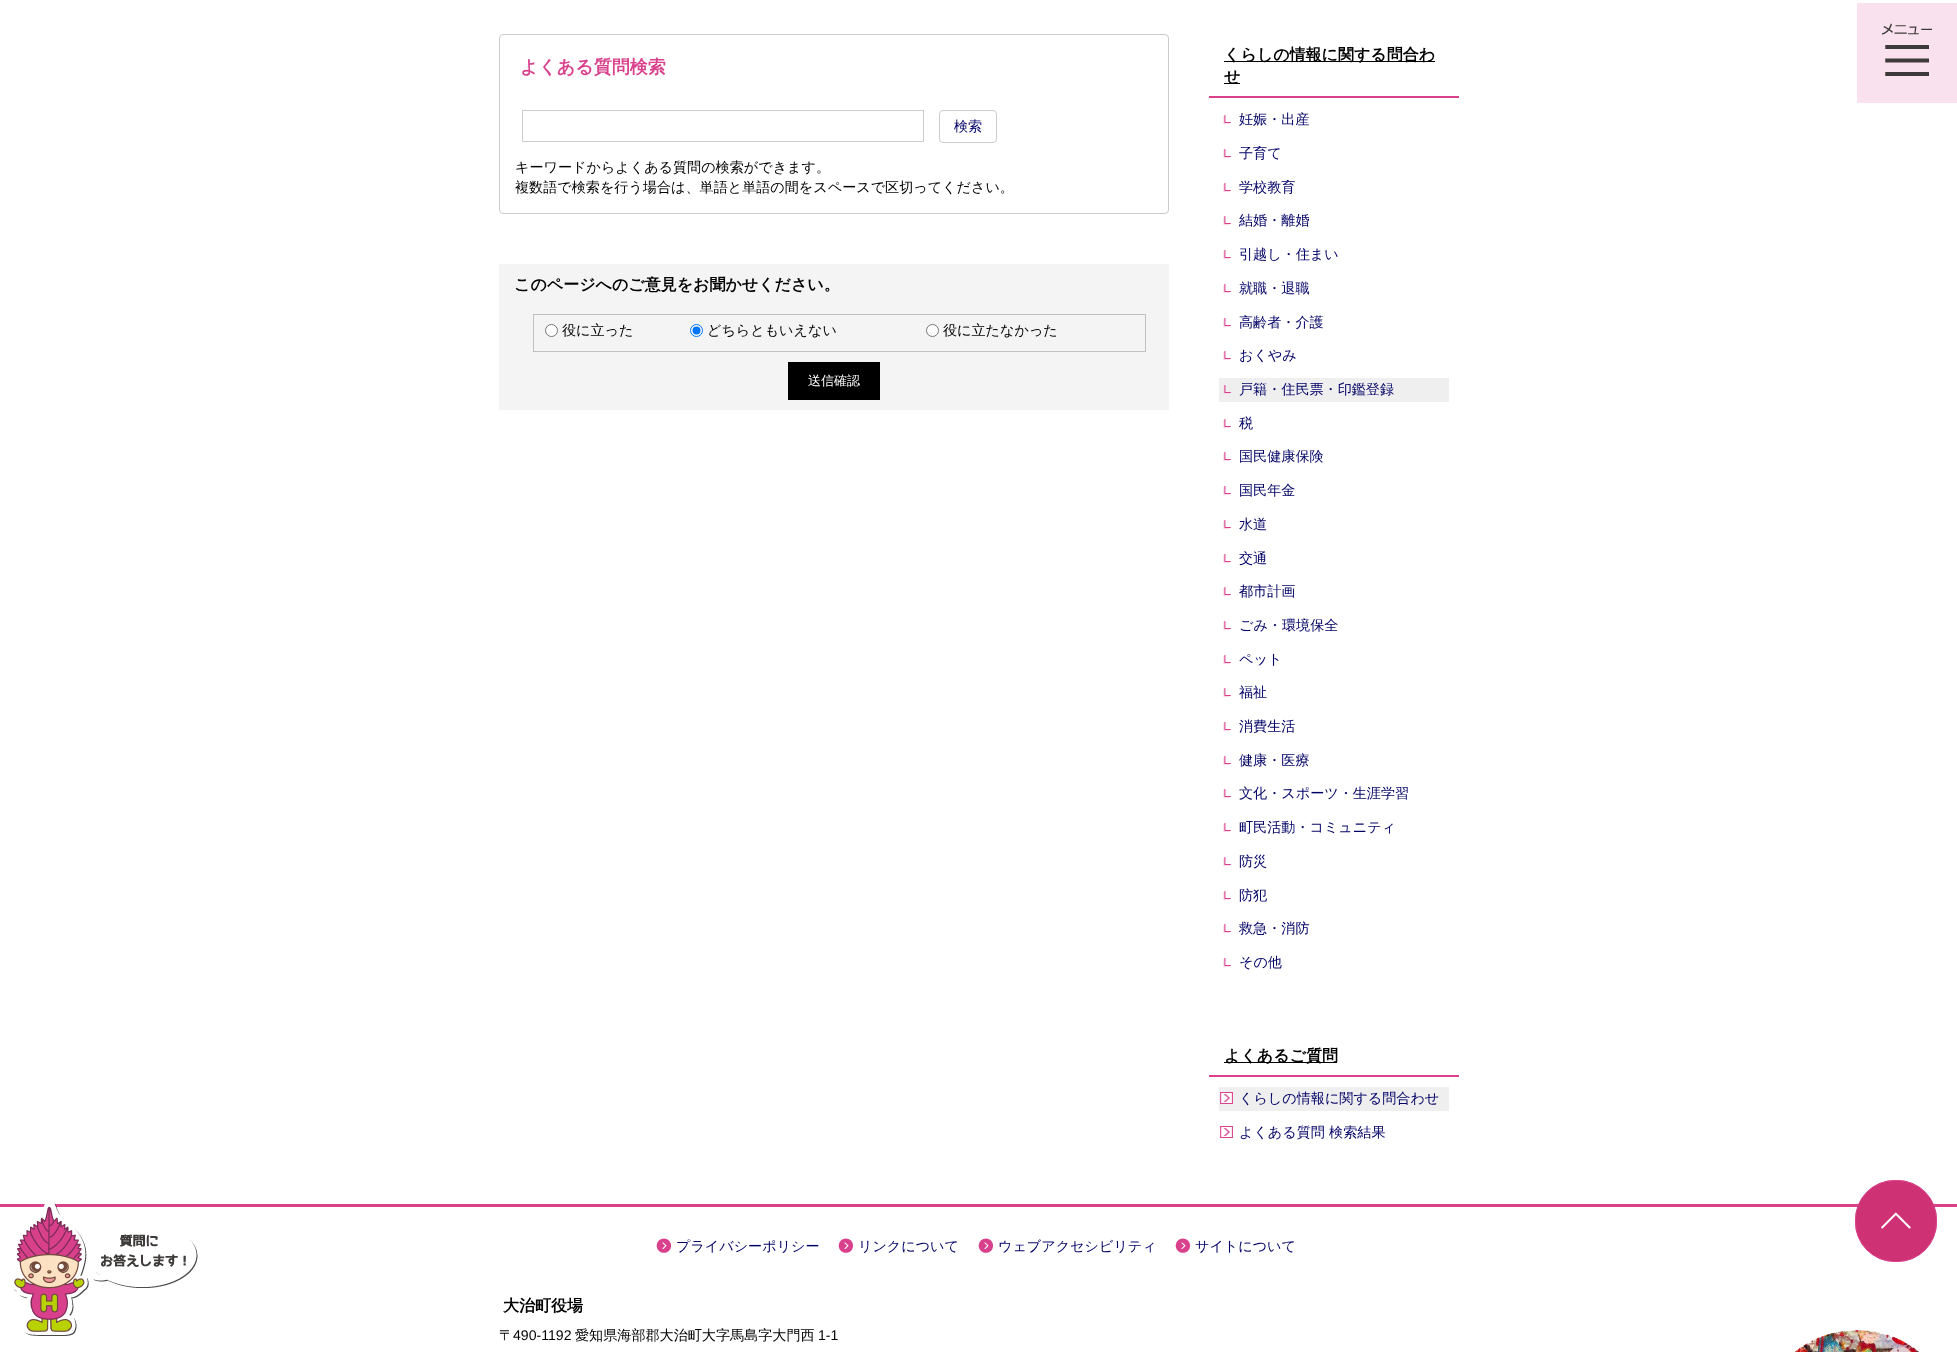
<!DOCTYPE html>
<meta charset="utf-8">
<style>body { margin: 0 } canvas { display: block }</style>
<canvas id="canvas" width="1957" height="1352"></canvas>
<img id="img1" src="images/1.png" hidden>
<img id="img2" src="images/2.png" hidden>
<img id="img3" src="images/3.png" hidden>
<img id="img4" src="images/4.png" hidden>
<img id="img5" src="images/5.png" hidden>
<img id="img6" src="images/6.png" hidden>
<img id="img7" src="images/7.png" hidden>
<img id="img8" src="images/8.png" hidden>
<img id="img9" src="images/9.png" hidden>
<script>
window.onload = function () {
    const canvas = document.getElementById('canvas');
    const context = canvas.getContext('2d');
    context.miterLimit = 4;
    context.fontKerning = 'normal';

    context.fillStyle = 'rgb(255, 255, 255)';
    context.fillRect(0, 0, 1957, 1352);
    context.beginPath();
    context.roundRect(499.5, 34.5, 669, 179, 3.5);
    context.strokeStyle = 'rgb(204, 204, 204)';
    context.stroke();
    context.strokeRect(522.5, 110.5, 401, 31);
    context.beginPath();
    context.roundRect(939.5, 110.5, 57, 32, 3.5);
    context.stroke();
    context.fillStyle = 'rgb(244, 244, 244)';
    context.fillRect(499, 264, 670, 146);
    context.strokeStyle = 'rgb(192, 192, 192)';
    context.strokeRect(533.5, 314.5, 612, 37);
    context.fillStyle = 'rgb(255, 255, 255)';
    context.beginPath();
    context.arc(551.5, 330.5, 6, 0, 2 * Math.PI);
    context.fill();
    context.strokeStyle = 'rgb(118, 118, 118)';
    context.stroke();
    context.beginPath();
    context.arc(696.5, 330.5, 6, 0, 2 * Math.PI);
    context.fill();
    context.strokeStyle = 'rgb(0, 117, 255)';
    context.stroke();
    context.fillStyle = 'rgb(0, 117, 255)';
    context.beginPath();
    context.arc(696.5, 330.5, 4, 0, 2 * Math.PI);
    context.fill();
    context.fillStyle = 'rgb(255, 255, 255)';
    context.beginPath();
    context.arc(932.5, 330.5, 6, 0, 2 * Math.PI);
    context.fill();
    context.strokeStyle = 'rgb(118, 118, 118)';
    context.stroke();
    context.fillStyle = 'rgb(0, 0, 0)';
    context.fillRect(788, 362, 92, 38);
    context.fillStyle = 'rgb(217, 65, 140)';
    context.fillRect(1209, 96, 250, 2);
    context.fillStyle = 'rgb(0, 0, 0)';
    context.fillRect(1224, 61, 211, 1);
    context.fillRect(1224, 83, 16, 1);
    context.drawImage(document.getElementById('img1'), 1223, 115, 8, 9);
    context.drawImage(document.getElementById('img1'), 1223, 149, 8, 9);
    context.drawImage(document.getElementById('img1'), 1223, 183, 8, 9);
    context.drawImage(document.getElementById('img1'), 1223, 216, 8, 9);
    context.drawImage(document.getElementById('img1'), 1223, 250, 8, 9);
    context.drawImage(document.getElementById('img1'), 1223, 284, 8, 9);
    context.drawImage(document.getElementById('img1'), 1223, 318, 8, 9);
    context.drawImage(document.getElementById('img1'), 1223, 351, 8, 9);
    context.fillStyle = 'rgb(239, 239, 239)';
    context.fillRect(1219, 378, 230, 24);
    context.drawImage(document.getElementById('img2'), 1223, 385, 8, 9);
    context.drawImage(document.getElementById('img1'), 1223, 419, 8, 9);
    context.drawImage(document.getElementById('img1'), 1223, 452, 8, 9);
    context.drawImage(document.getElementById('img1'), 1223, 486, 8, 9);
    context.drawImage(document.getElementById('img1'), 1223, 520, 8, 9);
    context.drawImage(document.getElementById('img1'), 1223, 554, 8, 9);
    context.drawImage(document.getElementById('img1'), 1223, 587, 8, 9);
    context.drawImage(document.getElementById('img1'), 1223, 621, 8, 9);
    context.drawImage(document.getElementById('img1'), 1223, 655, 8, 9);
    context.drawImage(document.getElementById('img1'), 1223, 688, 8, 9);
    context.drawImage(document.getElementById('img1'), 1223, 722, 8, 9);
    context.drawImage(document.getElementById('img1'), 1223, 756, 8, 9);
    context.drawImage(document.getElementById('img1'), 1223, 789, 8, 9);
    context.drawImage(document.getElementById('img1'), 1223, 823, 8, 9);
    context.drawImage(document.getElementById('img1'), 1223, 857, 8, 9);
    context.drawImage(document.getElementById('img1'), 1223, 891, 8, 9);
    context.drawImage(document.getElementById('img1'), 1223, 924, 8, 9);
    context.drawImage(document.getElementById('img1'), 1223, 958, 8, 9);
    context.fillStyle = 'rgb(217, 65, 140)';
    context.fillRect(1209, 1075, 250, 2);
    context.fillStyle = 'rgb(0, 0, 0)';
    context.fillRect(1224, 1062, 113, 1);
    context.fillStyle = 'rgb(239, 239, 239)';
    context.fillRect(1219, 1087, 230, 24);
    context.drawImage(document.getElementById('img3'), 1220, 1092, 13, 12);
    context.drawImage(document.getElementById('img4'), 1220, 1126, 13, 12);
    context.fillStyle = 'rgb(249, 225, 238)';
    context.fillRect(1857, 3, 100, 100);
    context.drawImage(document.getElementById('img5'), 1881, 23, 51, 53);
    context.fillStyle = 'rgb(217, 65, 140)';
    context.fillRect(0, 1204, 1957, 3);
    context.drawImage(document.getElementById('img6'), 14, 1203, 184, 133);
    context.drawImage(document.getElementById('img7'), 1794, 1330, 125, 22);
    context.drawImage(document.getElementById('img8'), 656, 1238, 15, 15);
    context.drawImage(document.getElementById('img8'), 838, 1238, 15, 15);
    context.drawImage(document.getElementById('img8'), 978, 1238, 15, 15);
    context.drawImage(document.getElementById('img8'), 1175, 1238, 15, 15);
    context.fillStyle = 'rgb(206, 50, 116)';
    context.beginPath();
    context.roundRect(1855, 1180, 82, 82, 40);
    context.fill();
    context.drawImage(document.getElementById('img9'), 1881, 1212, 30, 17);
    context.beginPath();
    context.roundRect(1855.5, 1180.5, 81, 81, 39.5);
    context.strokeStyle = 'rgb(217, 65, 140)';
    context.stroke();
    context.font = 'bold 18px WenQuanYi Zen Hei';
    context.fillStyle = 'rgb(217, 65, 140)';
    context.fillText('よくある質問検索', 520, 73);
    context.font = '500 14.1px WenQuanYi Zen Hei';
    context.fillStyle = 'rgb(0, 0, 102)';
    context.fillText('検索', 954, 131);
    context.fillStyle = 'rgb(0, 0, 0)';
    context.fillText('キーワードからよくある質問の検索ができます。', 515, 172);
    context.fillText('複数語で検索を行う場合は、単語と単語の間をスペースで区切ってください。', 515, 192);
    context.font = 'bold 16px WenQuanYi Zen Hei';
    context.fillText('このページへのご意見をお聞かせください。', 514, 290);
    context.font = '500 14.1px WenQuanYi Zen Hei';
    context.fillText('役に立った', 562, 335);
    context.fillText('どちらともいえない', 707, 335);
    context.fillText('役に立たなかった', 943, 335);
    context.font = '500 13px WenQuanYi Zen Hei';
    context.fillStyle = 'rgb(255, 255, 255)';
    context.fillText('送信確認', 808, 385);
    context.font = 'bold 16px WenQuanYi Zen Hei';
    context.fillStyle = 'rgb(0, 0, 0)';
    context.fillText('くらしの情報に関する問合わ', 1224, 60);
    context.fillText('せ', 1224, 82);
    context.font = '500 14.1px WenQuanYi Zen Hei';
    context.fillStyle = 'rgb(0, 0, 102)';
    context.fillText('妊娠・出産', 1239, 124);
    context.fillText('子育て', 1239, 158);
    context.fillText('学校教育', 1239, 192);
    context.fillText('結婚・離婚', 1239, 225);
    context.fillText('引越し・住まい', 1239, 259);
    context.fillText('就職・退職', 1239, 293);
    context.fillText('高齢者・介護', 1239, 327);
    context.fillText('おくやみ', 1239, 360);
    context.fillText('戸籍・住民票・印鑑登録', 1239, 394);
    context.fillText('税', 1239, 428);
    context.fillText('国民健康保険', 1239, 461);
    context.fillText('国民年金', 1239, 495);
    context.fillText('水道', 1239, 529);
    context.fillText('交通', 1239, 563);
    context.fillText('都市計画', 1239, 596);
    context.fillText('ごみ・環境保全', 1239, 630);
    context.fillText('ペット', 1239, 664);
    context.fillText('福祉', 1239, 697);
    context.fillText('消費生活', 1239, 731);
    context.fillText('健康・医療', 1239, 765);
    context.fillText('文化・スポーツ・生涯学習', 1239, 798);
    context.fillText('町民活動・コミュニティ', 1239, 832);
    context.fillText('防災', 1239, 866);
    context.fillText('防犯', 1239, 900);
    context.fillText('救急・消防', 1239, 933);
    context.fillText('その他', 1239, 967);
    context.font = 'bold 16px WenQuanYi Zen Hei';
    context.fillStyle = 'rgb(0, 0, 0)';
    context.fillText('よくあるご質問', 1224, 1061);
    context.font = '500 14.1px WenQuanYi Zen Hei';
    context.fillStyle = 'rgb(0, 0, 102)';
    context.fillText('くらしの情報に関する問合わせ', 1239, 1103);
    context.fillText('よくある質問 検索結果', 1239, 1137);
    context.fillText('プライバシーポリシー', 676, 1251);
    context.fillText('リンクについて', 858, 1251);
    context.fillText('ウェブアクセシビリティ', 998, 1251);
    context.fillText('サイトについて', 1195, 1251);
    context.font = 'bold 16px WenQuanYi Zen Hei';
    context.fillStyle = 'rgb(0, 0, 0)';
    context.fillText('大治町役場', 503, 1311);
    context.font = '500 14.1px WenQuanYi Zen Hei';
    context.fillText('〒', 499, 1340);
    context.font = '14.1px Liberation Sans';
    context.fillText('490-1192', 513, 1340);
    context.font = '500 14.1px WenQuanYi Zen Hei';
    context.fillText('愛知県海部郡大治町大字馬島字大門西', 575, 1340);
    context.font = '14.1px Liberation Sans';
    context.fillText('1-1', 818, 1340);
};
</script>
